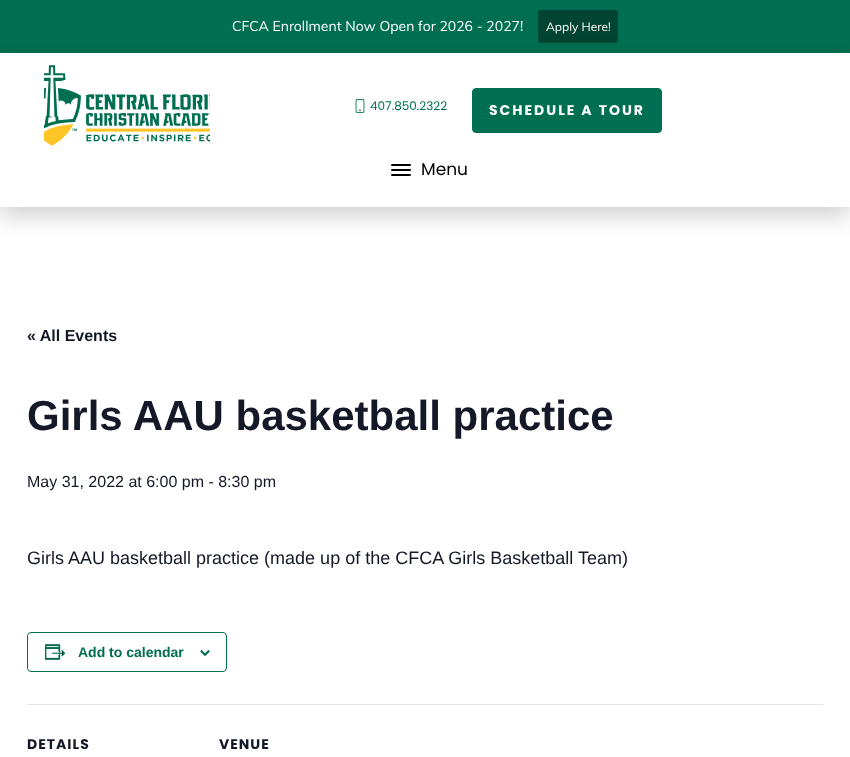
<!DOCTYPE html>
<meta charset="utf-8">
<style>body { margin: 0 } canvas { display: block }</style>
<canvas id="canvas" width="850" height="757"></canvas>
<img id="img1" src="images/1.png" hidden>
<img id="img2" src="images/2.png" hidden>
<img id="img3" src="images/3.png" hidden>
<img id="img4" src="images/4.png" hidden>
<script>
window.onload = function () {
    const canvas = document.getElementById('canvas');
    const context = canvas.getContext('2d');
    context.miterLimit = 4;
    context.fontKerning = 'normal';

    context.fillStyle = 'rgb(255, 255, 255)';
    context.fillRect(0, 0, 850, 757);
    context.fillStyle = 'rgb(0, 111, 81)';
    context.fillRect(0, 0, 850, 53);
    context.fillStyle = 'rgb(0, 68, 49)';
    context.beginPath();
    context.roundRect(538, 10, 80, 33, 3);
    context.fill();
    context.save();
    context.beginPath();
    context.moveTo(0, 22);
    context.lineTo(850, 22);
    context.lineTo(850, 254);
    context.lineTo(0, 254);
    context.closePath();
    context.moveTo(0, 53);
    context.lineTo(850, 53);
    context.lineTo(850, 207);
    context.lineTo(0, 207);
    context.closePath();
    context.clip('evenodd');
    context.fillStyle = 'rgba(0, 0, 0, 0.2)';
    context.filter = 'blur(12.5px)';
    context.beginPath();
    context.rect(0, 61, 850, 154);
    context.fill();
    context.filter = 'none';
    context.restore();
    context.drawImage(document.getElementById('img1'), 44, 65, 166, 81);
    context.drawImage(document.getElementById('img2'), 355, 99, 10, 14);
    context.fillStyle = 'rgb(0, 111, 81)';
    context.beginPath();
    context.roundRect(472.5, 88.5, 189, 44, 3.5);
    context.fill();
    context.strokeStyle = 'rgb(0, 111, 81)';
    context.stroke();
    context.fillStyle = 'rgb(0, 0, 0)';
    context.beginPath();
    context.roundRect(391, 164, 20, 2, 1);
    context.fill();
    context.beginPath();
    context.roundRect(391, 169, 20, 2, 1);
    context.fill();
    context.beginPath();
    context.roundRect(391, 174, 20, 2, 1);
    context.fill();
    context.beginPath();
    context.roundRect(27.5, 632.5, 199, 39, 3.5);
    context.stroke();
    context.drawImage(document.getElementById('img3'), 45, 644, 21, 16);
    context.drawImage(document.getElementById('img4'), 200, 650, 10, 6);
    context.fillStyle = 'rgb(228, 228, 228)';
    context.fillRect(27, 704, 796, 1);
    context.font = '14px Muli';
    context.fillStyle = 'rgb(255, 255, 255)';
    context.fillText('CFCA Enrollment Now Open for 2026 - 2027!', 232, 31);
    context.font = '12px Muli';
    context.fillText('Apply Here!', 546, 31);
    context.font = '12px Poppins';
    context.fillStyle = 'rgb(0, 111, 81)';
    context.fillText('407.850.2322', 370, 110);
    context.letterSpacing = '2px';
    context.font = 'bold 14px Poppins';
    context.fillStyle = 'rgb(255, 255, 255)';
    context.fillText('SCHEDULE A TOUR', 489, 115);
    context.letterSpacing = '0px';
    context.font = '17px Poppins';
    context.fillStyle = 'rgb(0, 0, 0)';
    context.fillText('Menu', 421, 175);
    context.font = 'bold 16px Liberation Sans';
    context.fillStyle = 'rgb(20, 24, 39)';
    context.fillText('« All Events', 27, 341);
    context.font = 'bold 42px Liberation Sans';
    context.fillText('Girls AAU basketball practice', 27, 430);
    context.font = '16px Liberation Sans';
    context.fillText('May 31, 2022 at 6:00 pm - 8:30 pm', 27, 487);
    context.font = '18px Liberation Sans';
    context.fillText('Girls AAU basketball practice (made up of the CFCA Girls Basketball Team)', 27, 564);
    context.font = 'bold 14px Liberation Sans';
    context.fillStyle = 'rgb(0, 111, 81)';
    context.fillText('Add to calendar', 78, 657);
    context.letterSpacing = '1px';
    context.font = 'bold 14px Poppins';
    context.fillStyle = 'rgb(20, 24, 39)';
    context.fillText('DETAILS', 27, 749);
    context.fillText('VENUE', 219, 749);
};
</script>
